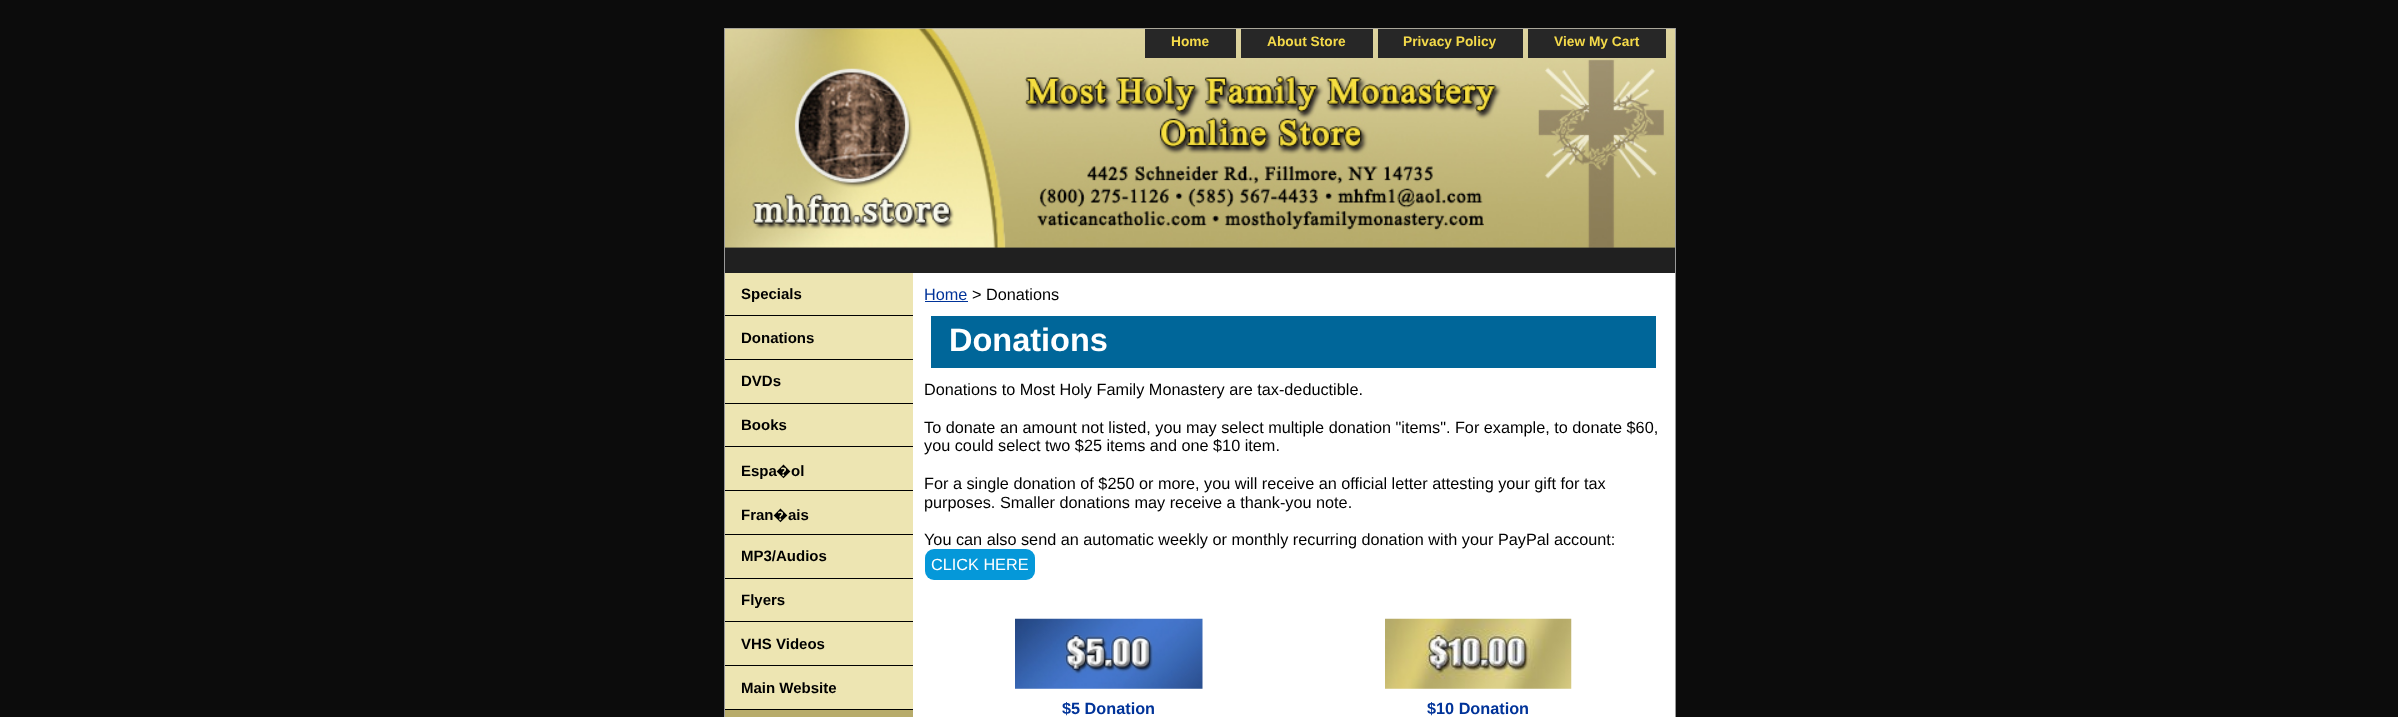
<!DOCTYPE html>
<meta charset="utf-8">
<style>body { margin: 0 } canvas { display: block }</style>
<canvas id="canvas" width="2398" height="717"></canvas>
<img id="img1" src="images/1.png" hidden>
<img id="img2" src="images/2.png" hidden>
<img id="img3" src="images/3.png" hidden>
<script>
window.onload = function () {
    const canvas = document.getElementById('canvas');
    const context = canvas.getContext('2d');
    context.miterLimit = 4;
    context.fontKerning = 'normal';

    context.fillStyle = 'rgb(12, 12, 12)';
    context.fillRect(0, 0, 2398, 717);
    context.fillStyle = 'rgb(255, 255, 255)';
    context.fillRect(913, 273, 762, 444);
    context.strokeStyle = 'rgb(153, 153, 153)';
    context.strokeRect(724.5, 28.5, 951, 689);
    context.fillStyle = 'rgb(56, 57, 51)';
    context.fillRect(725, 247, 950, 1);
    context.drawImage(document.getElementById('img1'), 725, 28, 950, 220);
    context.fillStyle = 'rgb(39, 39, 39)';
    context.fillRect(1145, 29, 91, 29);
    context.fillRect(1241, 29, 132, 29);
    context.fillRect(1378, 29, 145, 29);
    context.fillRect(1528, 29, 138, 29);
    context.fillStyle = 'rgb(32, 32, 32)';
    context.fillRect(725, 248, 950, 25);
    context.fillStyle = 'rgb(183, 171, 106)';
    context.fillRect(725, 710, 188, 7);
    context.fillStyle = 'rgb(237, 229, 178)';
    context.fillRect(725, 273, 188, 42);
    context.fillStyle = 'rgb(0, 0, 0)';
    context.fillRect(725, 315, 188, 1);
    context.fillStyle = 'rgb(237, 229, 178)';
    context.fillRect(725, 316, 188, 43);
    context.fillStyle = 'rgb(0, 0, 0)';
    context.fillRect(725, 359, 188, 1);
    context.fillStyle = 'rgb(237, 229, 178)';
    context.fillRect(725, 360, 188, 43);
    context.fillStyle = 'rgb(0, 0, 0)';
    context.fillRect(725, 403, 188, 1);
    context.fillStyle = 'rgb(237, 229, 178)';
    context.fillRect(725, 404, 188, 86);
    context.fillStyle = 'rgb(0, 0, 0)';
    context.fillRect(725, 446, 188, 1);
    context.fillRect(725, 490, 188, 1);
    context.fillStyle = 'rgb(237, 229, 178)';
    context.fillRect(725, 491, 188, 43);
    context.fillStyle = 'rgb(0, 0, 0)';
    context.fillRect(725, 534, 188, 1);
    context.fillStyle = 'rgb(237, 229, 178)';
    context.fillRect(725, 535, 188, 43);
    context.fillStyle = 'rgb(0, 0, 0)';
    context.fillRect(725, 578, 188, 1);
    context.fillStyle = 'rgb(237, 229, 178)';
    context.fillRect(725, 579, 188, 86);
    context.fillStyle = 'rgb(0, 0, 0)';
    context.fillRect(725, 621, 188, 1);
    context.fillRect(725, 665, 188, 1);
    context.fillStyle = 'rgb(237, 229, 178)';
    context.fillRect(725, 666, 188, 43);
    context.fillStyle = 'rgb(0, 0, 0)';
    context.fillRect(725, 709, 188, 1);
    context.fillStyle = 'rgb(0, 51, 153)';
    context.fillRect(925, 301, 43, 1);
    context.fillStyle = 'rgb(0, 102, 153)';
    context.fillRect(931, 316, 725, 52);
    context.fillStyle = 'rgb(5, 152, 217)';
    context.beginPath();
    context.roundRect(925, 549, 110, 31, 9);
    context.fill();
    context.drawImage(document.getElementById('img2'), 1015, 618, 188, 71);
    context.drawImage(document.getElementById('img3'), 1385, 618, 187, 71);
    context.font = 'bold 13.75px Liberation Sans';
    context.fillStyle = 'rgb(244, 218, 74)';
    context.fillText('Home', 1171, 46);
    context.fillText('About Store', 1267, 46);
    context.fillText('Privacy Policy', 1403, 46);
    context.fillText('View My Cart', 1554, 46);
    context.font = 'bold 15px Liberation Sans';
    context.fillStyle = 'rgb(0, 0, 0)';
    context.fillText('Specials', 741, 299);
    context.fillText('Donations', 741, 343);
    context.fillText('DVDs', 741, 386);
    context.fillText('Books', 741, 430);
    context.fillText('Espa', 741, 476);
    context.font = 'bold 15px Noto Sans';
    context.fillText('�', 776, 476);
    context.font = 'bold 15px Liberation Sans';
    context.fillText('ol', 791, 476);
    context.fillText('Fran', 741, 520);
    context.font = 'bold 15px Noto Sans';
    context.fillText('�', 773, 520);
    context.font = 'bold 15px Liberation Sans';
    context.fillText('ais', 788, 520);
    context.fillText('MP3/Audios', 741, 561);
    context.fillText('Flyers', 741, 605);
    context.fillText('VHS Videos', 741, 649);
    context.fillText('Main Website', 741, 693);
    context.font = '16.25px Liberation Sans';
    context.fillStyle = 'rgb(0, 51, 153)';
    context.fillText('Home', 924, 300);
    context.fillStyle = 'rgb(0, 0, 0)';
    context.fillText('> Donations', 972, 300);
    context.font = 'bold 32.5px Liberation Sans';
    context.fillStyle = 'rgb(255, 255, 255)';
    context.fillText('Donations', 949, 351);
    context.font = '16.25px Liberation Sans';
    context.fillStyle = 'rgb(0, 0, 0)';
    context.fillText('Donations to Most Holy Family Monastery are tax-deductible.', 924, 395);
    context.fillText('To donate an amount not listed, you may select multiple donation "items". For example, to donate $60,', 924, 433);
    context.fillText('you could select two $25 items and one $10 item.', 924, 451);
    context.fillText('For a single donation of $250 or more, you will receive an official letter attesting your gift for tax', 924, 489);
    context.fillText('purposes. Smaller donations may receive a thank-you note.', 924, 508);
    context.fillText('You can also send an automatic weekly or monthly recurring donation with your PayPal account:', 924, 545);
    context.fillStyle = 'rgb(255, 255, 255)';
    context.fillText('CLICK HERE', 931, 570);
    context.font = 'bold 16.25px Liberation Sans';
    context.fillStyle = 'rgb(0, 51, 153)';
    context.fillText('$5 Donation', 1062, 714);
    context.fillText('$10 Donation', 1427, 714);
};
</script>
